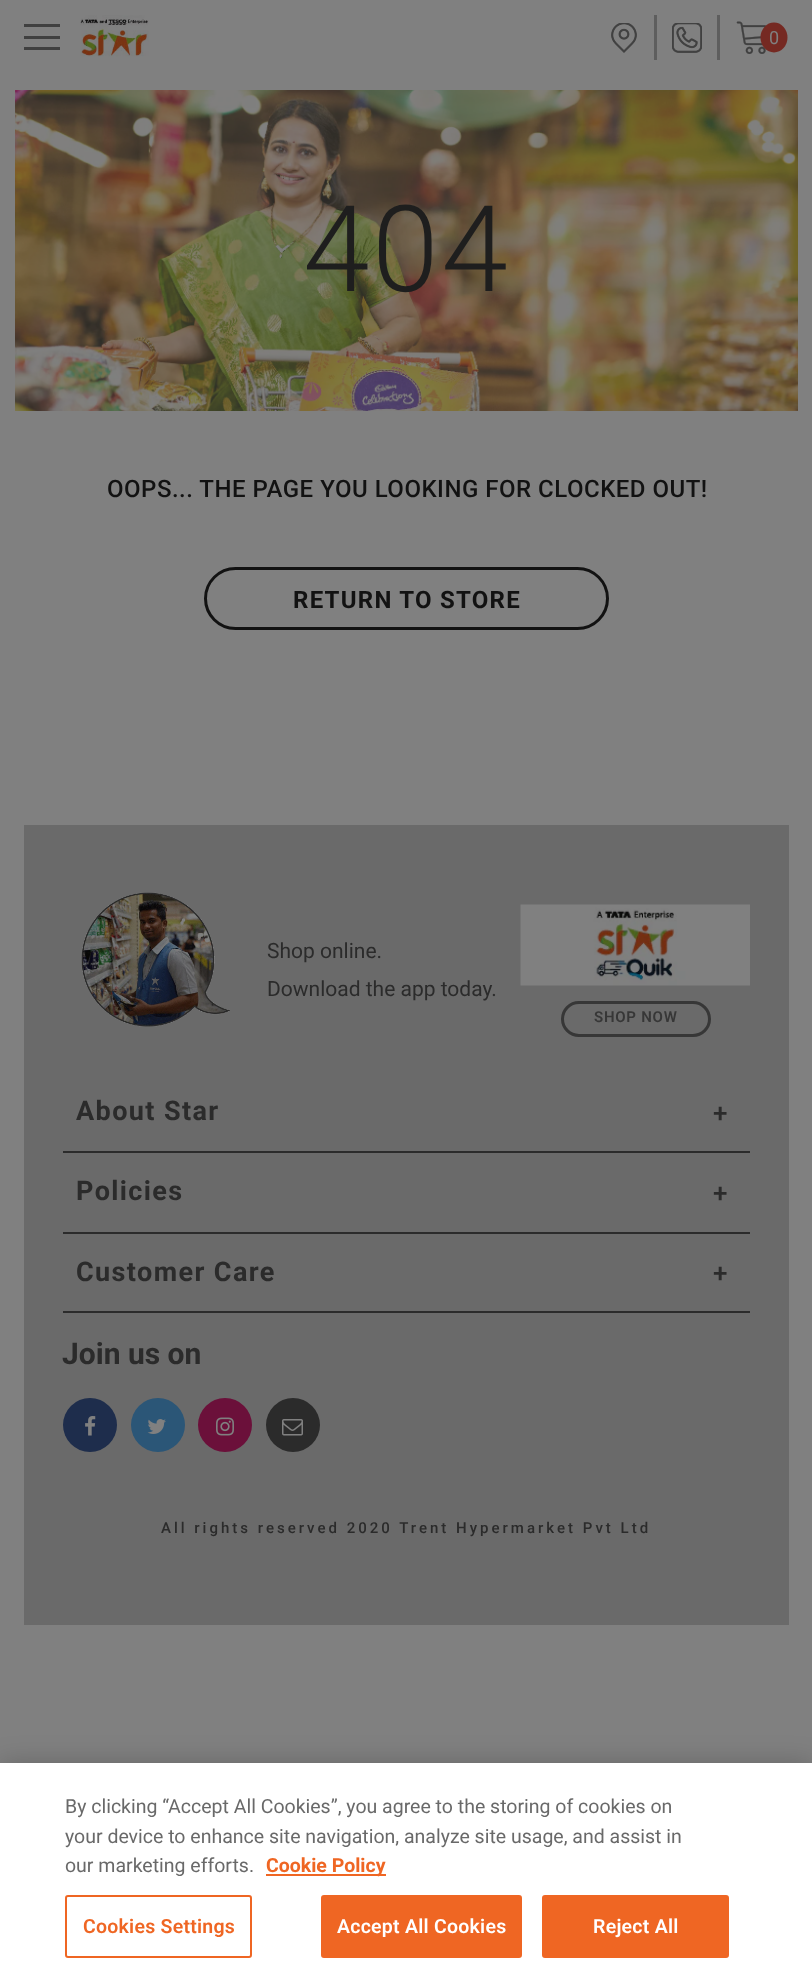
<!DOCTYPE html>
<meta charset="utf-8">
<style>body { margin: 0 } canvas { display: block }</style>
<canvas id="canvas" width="812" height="1981"></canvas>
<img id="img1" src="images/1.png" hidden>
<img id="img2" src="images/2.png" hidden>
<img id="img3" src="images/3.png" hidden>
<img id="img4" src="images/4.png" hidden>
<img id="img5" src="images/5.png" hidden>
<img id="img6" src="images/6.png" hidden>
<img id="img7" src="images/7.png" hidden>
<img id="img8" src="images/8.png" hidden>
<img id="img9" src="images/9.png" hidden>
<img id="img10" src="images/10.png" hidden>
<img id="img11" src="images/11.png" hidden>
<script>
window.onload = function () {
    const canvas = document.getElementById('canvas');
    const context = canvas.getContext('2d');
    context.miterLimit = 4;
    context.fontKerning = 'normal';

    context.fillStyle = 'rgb(128, 128, 128)';
    context.fillRect(0, 0, 812, 1981);
    context.fillStyle = 'rgb(64, 64, 64)';
    context.fillRect(24, 24, 36, 3);
    context.fillRect(24, 36, 36, 3);
    context.fillRect(24, 47, 36, 3);
    context.drawImage(document.getElementById('img1'), 80, 15, 69, 42);
    context.fillStyle = 'rgb(94, 94, 94)';
    context.fillRect(654, 15, 3, 45);
    context.drawImage(document.getElementById('img2'), 611, 23, 26, 30);
    context.fillRect(717, 15, 3, 45);
    context.drawImage(document.getElementById('img3'), 672, 23, 30, 30);
    context.drawImage(document.getElementById('img4'), 736, 21, 31, 33);
    context.fillStyle = 'rgb(117, 41, 34)';
    context.beginPath();
    context.ellipse(774, 37.5, 13.5, 15, 0, 0, 2 * Math.PI);
    context.fill();
    context.drawImage(document.getElementById('img5'), 15, 90, 783, 321);
    context.beginPath();
    context.roundRect(205.5, 568.5, 402, 60, 30);
    context.strokeStyle = 'rgb(18, 18, 18)';
    context.lineWidth = 3;
    context.stroke();
    context.fillStyle = 'rgb(106, 106, 106)';
    context.fillRect(24, 825, 765, 800);
    context.drawImage(document.getElementById('img6'), 81, 892, 149, 135);
    context.drawImage(document.getElementById('img7'), 520, 904, 230, 82);
    context.beginPath();
    context.roundRect(562.5, 1002.5, 147, 33, 16.5);
    context.strokeStyle = 'rgb(55, 55, 55)';
    context.stroke();
    context.fillStyle = 'rgb(43, 43, 43)';
    context.fillRect(63, 1151, 687, 2);
    context.fillRect(63, 1232, 687, 2);
    context.fillRect(63, 1311, 687, 2);
    context.fillStyle = 'rgb(30, 45, 76)';
    context.beginPath();
    context.arc(90, 1425, 27, 0, 2 * Math.PI);
    context.fill();
    context.drawImage(document.getElementById('img8'), 85, 1416, 11, 20);
    context.fillStyle = 'rgb(43, 86, 119)';
    context.beginPath();
    context.arc(158, 1425, 27, 0, 2 * Math.PI);
    context.fill();
    context.drawImage(document.getElementById('img9'), 147, 1419, 19, 15);
    context.fillStyle = 'rgb(107, 16, 58)';
    context.beginPath();
    context.arc(225, 1425, 27, 0, 2 * Math.PI);
    context.fill();
    context.drawImage(document.getElementById('img10'), 216, 1417, 18, 19);
    context.fillStyle = 'rgb(43, 43, 43)';
    context.beginPath();
    context.arc(293, 1425, 27, 0, 2 * Math.PI);
    context.fill();
    context.drawImage(document.getElementById('img11'), 282, 1419, 21, 17);
    context.fillStyle = 'rgba(0, 0, 0, 0.2)';
    context.filter = 'blur(13.5px)';
    context.beginPath();
    context.rect(0, 1763, 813, 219);
    context.fill();
    context.filter = 'none';
    context.fillStyle = 'rgb(255, 255, 255)';
    context.fillRect(0, 1763, 812, 218);
    context.fillStyle = 'rgb(239, 102, 35)';
    context.fillRect(266, 1874, 120, 2);
    context.beginPath();
    context.roundRect(66, 1896, 185, 61, 2);
    context.strokeStyle = 'rgb(239, 102, 35)';
    context.lineWidth = 2;
    context.stroke();
    context.beginPath();
    context.roundRect(322, 1896, 199, 61, 2);
    context.fill();
    context.stroke();
    context.beginPath();
    context.roundRect(543, 1896, 185, 61, 2);
    context.fill();
    context.stroke();
    context.font = '18px Roboto';
    context.fillStyle = 'rgb(128, 128, 128)';
    context.fillText('0', 769, 44);
    context.letterSpacing = '2.5px';
    context.font = '300 120px Roboto';
    context.fillStyle = 'rgb(30, 30, 30)';
    context.fillText('404', 303, 291);
    context.letterSpacing = '0.5px';
    context.font = '500 24px Roboto';
    context.fillStyle = 'rgb(18, 18, 18)';
    context.fillText('OOPS... THE PAGE YOU LOOKING FOR CLOCKED OUT!', 107, 497);
    context.letterSpacing = '1.25px';
    context.font = 'bold 24px Roboto';
    context.fillText('RETURN TO STORE', 293, 608);
    context.letterSpacing = '0px';
    context.font = '21px Roboto';
    context.fillStyle = 'rgb(43, 43, 43)';
    context.fillText('Shop online.', 267, 958);
    context.fillText('Download the app today.', 267, 996);
    context.letterSpacing = '0.75px';
    context.font = '600 15px Roboto';
    context.fillStyle = 'rgb(55, 55, 55)';
    context.fillText('SHOP NOW', 594, 1022);
    context.letterSpacing = '1.4px';
    context.font = 'bold 27px Roboto';
    context.fillStyle = 'rgb(43, 43, 43)';
    context.fillText('About Star', 76, 1120);
    context.font = '500 26px Roboto';
    context.fillText('+', 713, 1122);
    context.font = 'bold 27px Roboto';
    context.fillText('Policies', 76, 1200);
    context.font = '500 26px Roboto';
    context.fillText('+', 713, 1202);
    context.font = 'bold 27px Roboto';
    context.fillText('Customer Care', 76, 1281);
    context.font = '500 26px Roboto';
    context.fillText('+', 713, 1282);
    context.letterSpacing = '0px';
    context.font = 'bold 30px Roboto';
    context.fillText('Join us on', 62, 1364);
    context.letterSpacing = '3px';
    context.font = '500 15px Roboto';
    context.fillText('All rights reserved 2020 Trent Hypermarket Pvt Ltd', 161, 1533);
    context.letterSpacing = '0px';
    context.font = '19.5px Roboto';
    context.fillStyle = 'rgb(105, 105, 105)';
    context.fillText('By clicking “Accept All Cookies”, you agree to the storing of cookies on', 65, 1813);
    context.fillText('your device to enhance site navigation, analyze site usage, and assist in', 65, 1843);
    context.fillText('our marketing efforts.', 65, 1872);
    context.font = 'bold 19.5px Roboto';
    context.fillStyle = 'rgb(239, 102, 35)';
    context.fillText('Cookie Policy', 266, 1872);
    context.letterSpacing = '0.25px';
    context.font = '600 19.5px Roboto';
    context.fillText('Cookies Settings', 83, 1933);
    context.fillStyle = 'rgb(255, 255, 255)';
    context.fillText('Accept All Cookies', 337, 1933);
    context.fillText('Reject All', 593, 1933);
};
</script>
